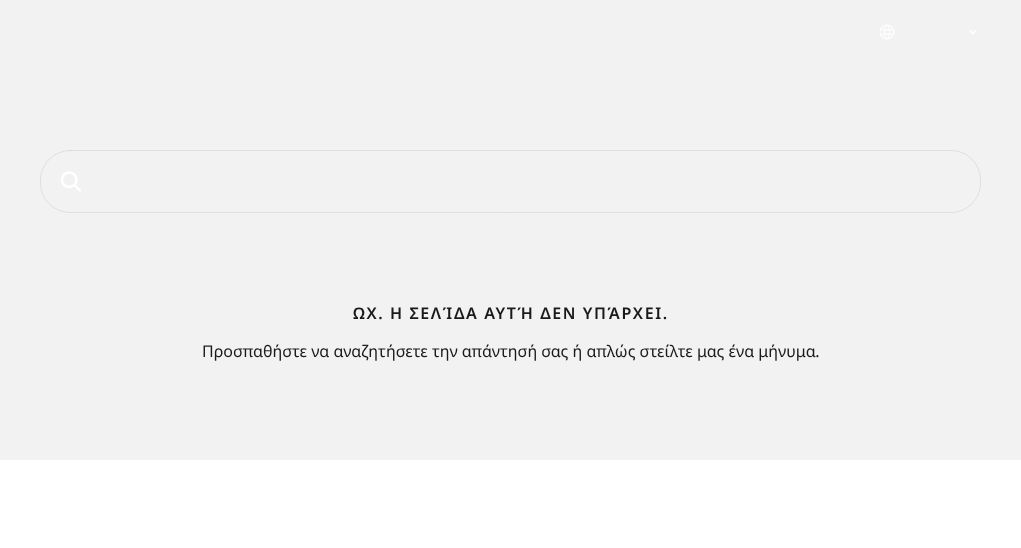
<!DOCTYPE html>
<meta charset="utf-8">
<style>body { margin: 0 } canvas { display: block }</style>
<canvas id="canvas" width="1021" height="548"></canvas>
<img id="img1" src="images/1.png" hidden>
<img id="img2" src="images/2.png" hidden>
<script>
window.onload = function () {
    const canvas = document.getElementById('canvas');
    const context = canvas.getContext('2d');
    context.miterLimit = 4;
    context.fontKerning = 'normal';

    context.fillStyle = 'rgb(242, 242, 242)';
    context.fillRect(0, 0, 1021, 548);
    context.drawImage(document.getElementById('img1'), 879, 24, 16, 16);
    context.beginPath();
    context.moveTo(970, 30.5);
    context.lineTo(973, 33.5);
    context.lineTo(976, 30.5);
    context.strokeStyle = 'rgb(255, 255, 255)';
    context.lineWidth = 1.5;
    context.lineCap = 'round';
    context.lineJoin = 'round';
    context.stroke();
    context.beginPath();
    context.roundRect(40.5, 150.5, 940, 62, 29.5);
    context.strokeStyle = 'rgba(0, 0, 0, 0.08)';
    context.lineWidth = 1;
    context.lineJoin = 'miter';
    context.stroke();
    context.drawImage(document.getElementById('img2'), 61, 171, 20, 21);
    context.fillStyle = 'rgb(255, 255, 255)';
    context.fillRect(0, 460, 1021, 88);
    context.letterSpacing = '1.6px';
    context.font = '600 16px Noto Sans';
    context.fillStyle = 'rgb(26, 26, 26)';
    context.fillText('ΩΧ. Η ΣΕΛΊΔΑ ΑΥΤΉ ΔΕΝ ΥΠΆΡΧΕΙ.', 353, 319);
    context.letterSpacing = '0px';
    context.font = '16px Noto Sans';
    context.fillText('Προσπαθήστε να αναζητήσετε την απάντησή σας ή απλώς στείλτε μας ένα μήνυμα.', 202, 357);
};
</script>
